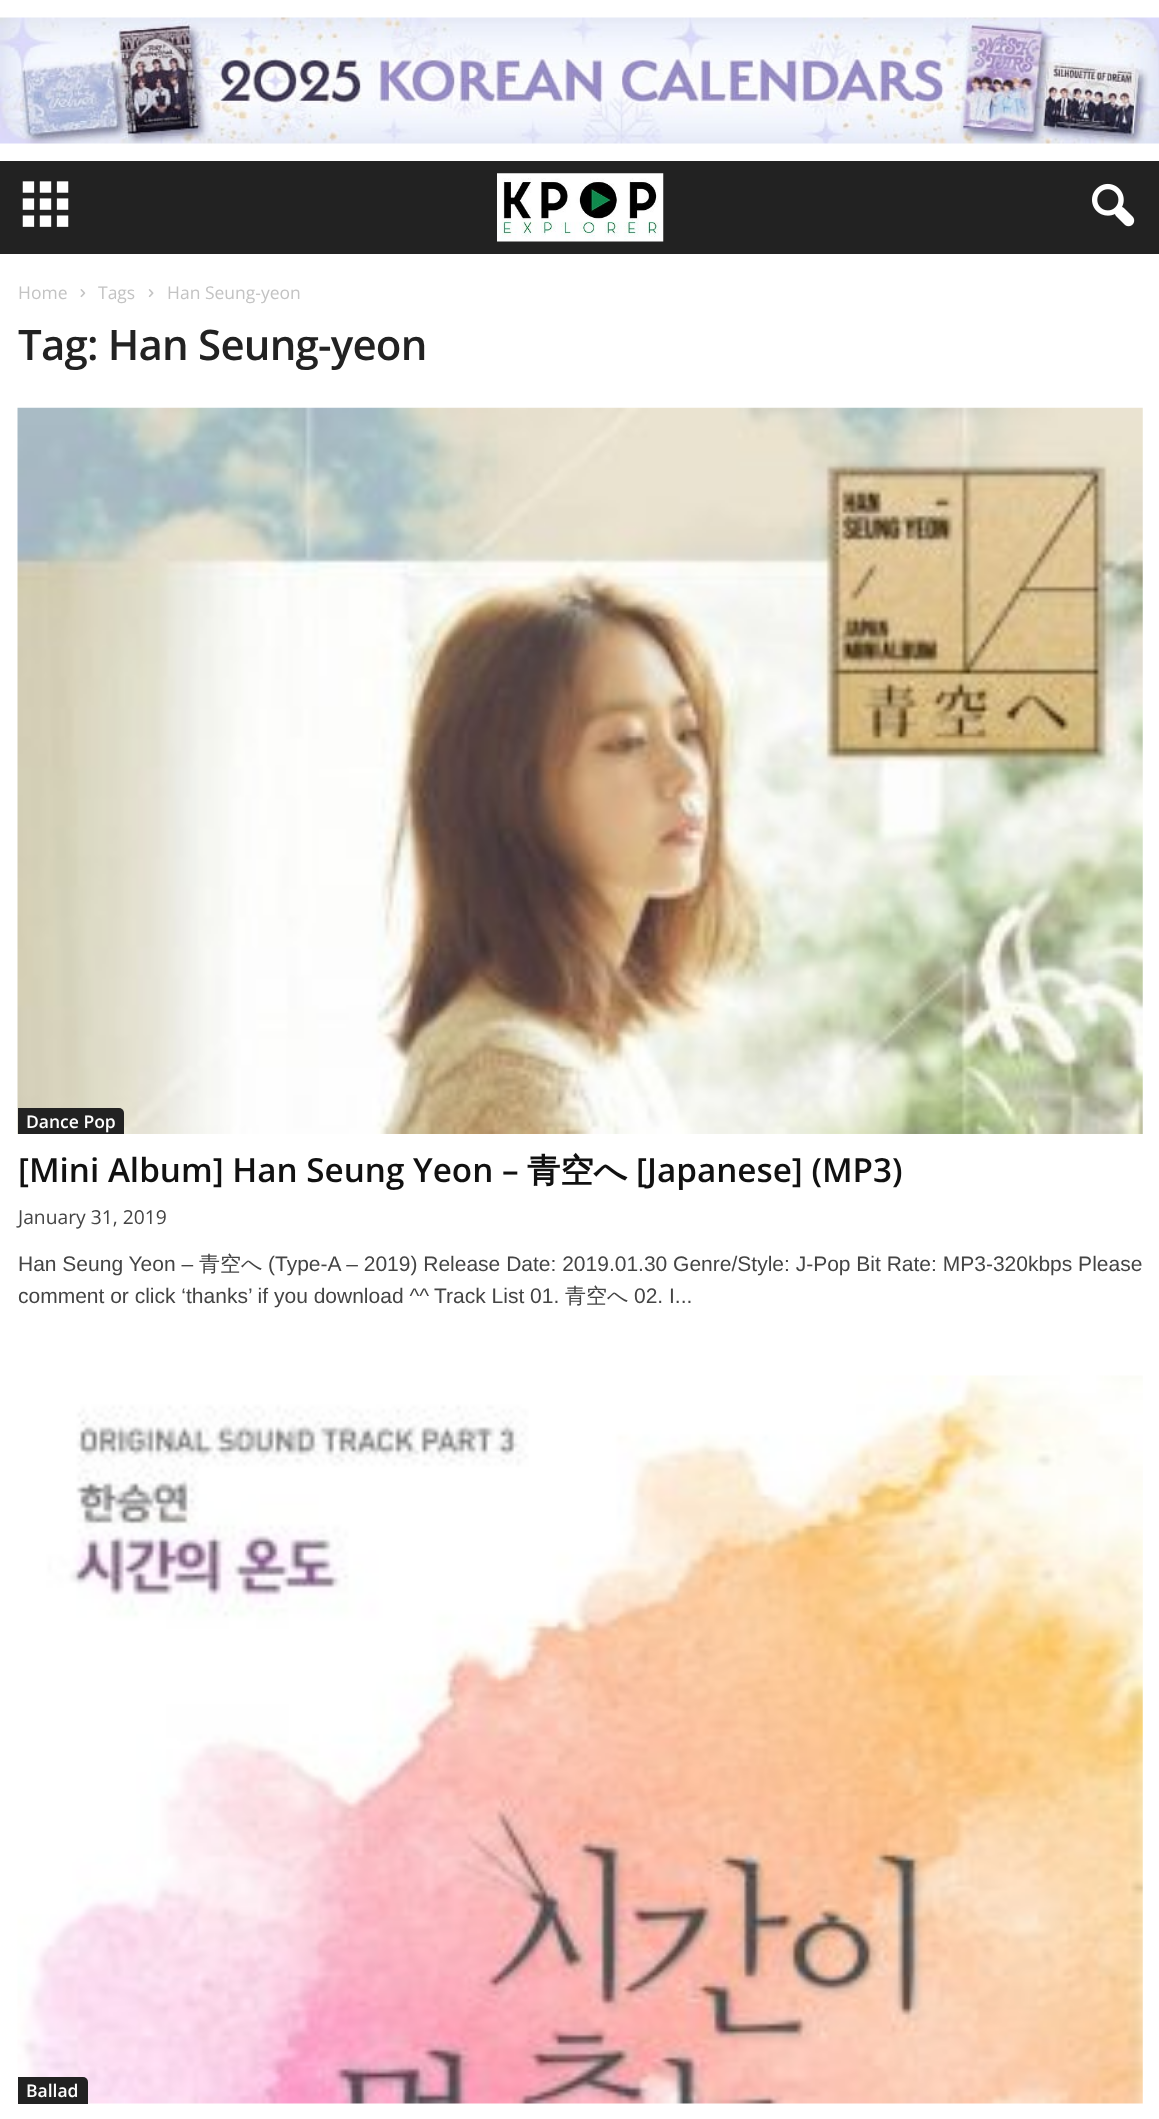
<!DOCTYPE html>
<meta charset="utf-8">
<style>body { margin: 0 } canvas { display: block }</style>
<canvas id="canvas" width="1159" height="2119"></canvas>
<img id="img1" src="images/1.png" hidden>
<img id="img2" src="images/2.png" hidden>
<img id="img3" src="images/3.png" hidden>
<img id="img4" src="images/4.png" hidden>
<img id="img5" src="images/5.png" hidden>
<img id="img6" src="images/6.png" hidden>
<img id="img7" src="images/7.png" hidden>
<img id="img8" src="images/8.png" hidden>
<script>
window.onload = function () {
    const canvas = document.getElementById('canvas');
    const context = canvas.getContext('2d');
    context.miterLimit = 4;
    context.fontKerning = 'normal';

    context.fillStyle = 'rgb(255, 255, 255)';
    context.fillRect(0, 0, 1159, 2119);
    context.drawImage(document.getElementById('img1'), 0, 17, 1159, 127);
    context.fillStyle = 'rgb(34, 34, 34)';
    context.fillRect(0, 161, 1159, 93);
    context.drawImage(document.getElementById('img2'), 22, 181, 47, 46);
    context.drawImage(document.getElementById('img3'), 497, 173, 167, 69);
    context.drawImage(document.getElementById('img4'), 1092, 183, 43, 44);
    context.drawImage(document.getElementById('img5'), 80, 289, 6, 9);
    context.drawImage(document.getElementById('img6'), 148, 289, 6, 9);
    context.drawImage(document.getElementById('img7'), 17, 407, 1126, 727);
    context.beginPath();
    context.roundRect(18, 1108, 106, 26, [0, 5, 0, 0]);
    context.fill();
    context.drawImage(document.getElementById('img8'), 17, 1375, 1126, 729);
    context.beginPath();
    context.roundRect(18, 2077, 70, 27, [0, 5, 0, 0]);
    context.fill();
    context.font = '17.5px Open Sans';
    context.fillStyle = 'rgb(195, 195, 195)';
    context.fillText('Home', 18, 299);
    context.fillText('Tags', 98, 299);
    context.fillText('Han Seung-yeon', 167, 299);
    context.letterSpacing = '-0.8px';
    context.font = '600 42px Open Sans';
    context.fillStyle = 'rgb(34, 34, 34)';
    context.fillText('Tag: Han Seung-yeon', 18, 360);
    context.letterSpacing = '0px';
    context.font = '600 17.5px Open Sans';
    context.fillStyle = 'rgb(255, 255, 255)';
    context.fillText('Dance Pop', 26, 1128);
    context.font = '600 33.25px Open Sans';
    context.fillStyle = 'rgb(17, 17, 17)';
    context.fillText('[Mini Album] Han Seung Yeon –', 18, 1182);
    context.font = 'bold 33.25px WenQuanYi Zen Hei';
    context.fillText('青空へ', 527, 1182);
    context.font = '600 33.25px Open Sans';
    context.fillText('[Japanese] (MP3)', 636, 1182);
    context.font = '19.25px Open Sans';
    context.fillStyle = 'rgb(68, 68, 68)';
    context.fillText('January 31, 2019', 18, 1224);
    context.font = '21px Liberation Sans';
    context.fillText('Han Seung Yeon –', 18, 1271);
    context.font = '500 21px WenQuanYi Zen Hei';
    context.fillText('青空へ', 199, 1271);
    context.font = '21px Liberation Sans';
    context.fillText('(Type-A – 2019) Release Date: 2019.01.30 Genre/Style: J-Pop Bit Rate: MP3-320kbps Please', 268, 1271);
    context.fillText('comment or click ‘thanks’ if you download ^^', 18, 1303);
    context.fillText('Track List 01.', 434, 1303);
    context.font = '500 21px WenQuanYi Zen Hei';
    context.fillText('青空へ', 565, 1303);
    context.font = '21px Liberation Sans';
    context.fillText('02. I...', 634, 1303);
    context.font = '600 17.5px Open Sans';
    context.fillStyle = 'rgb(255, 255, 255)';
    context.fillText('Ballad', 26, 2097);
};
</script>
